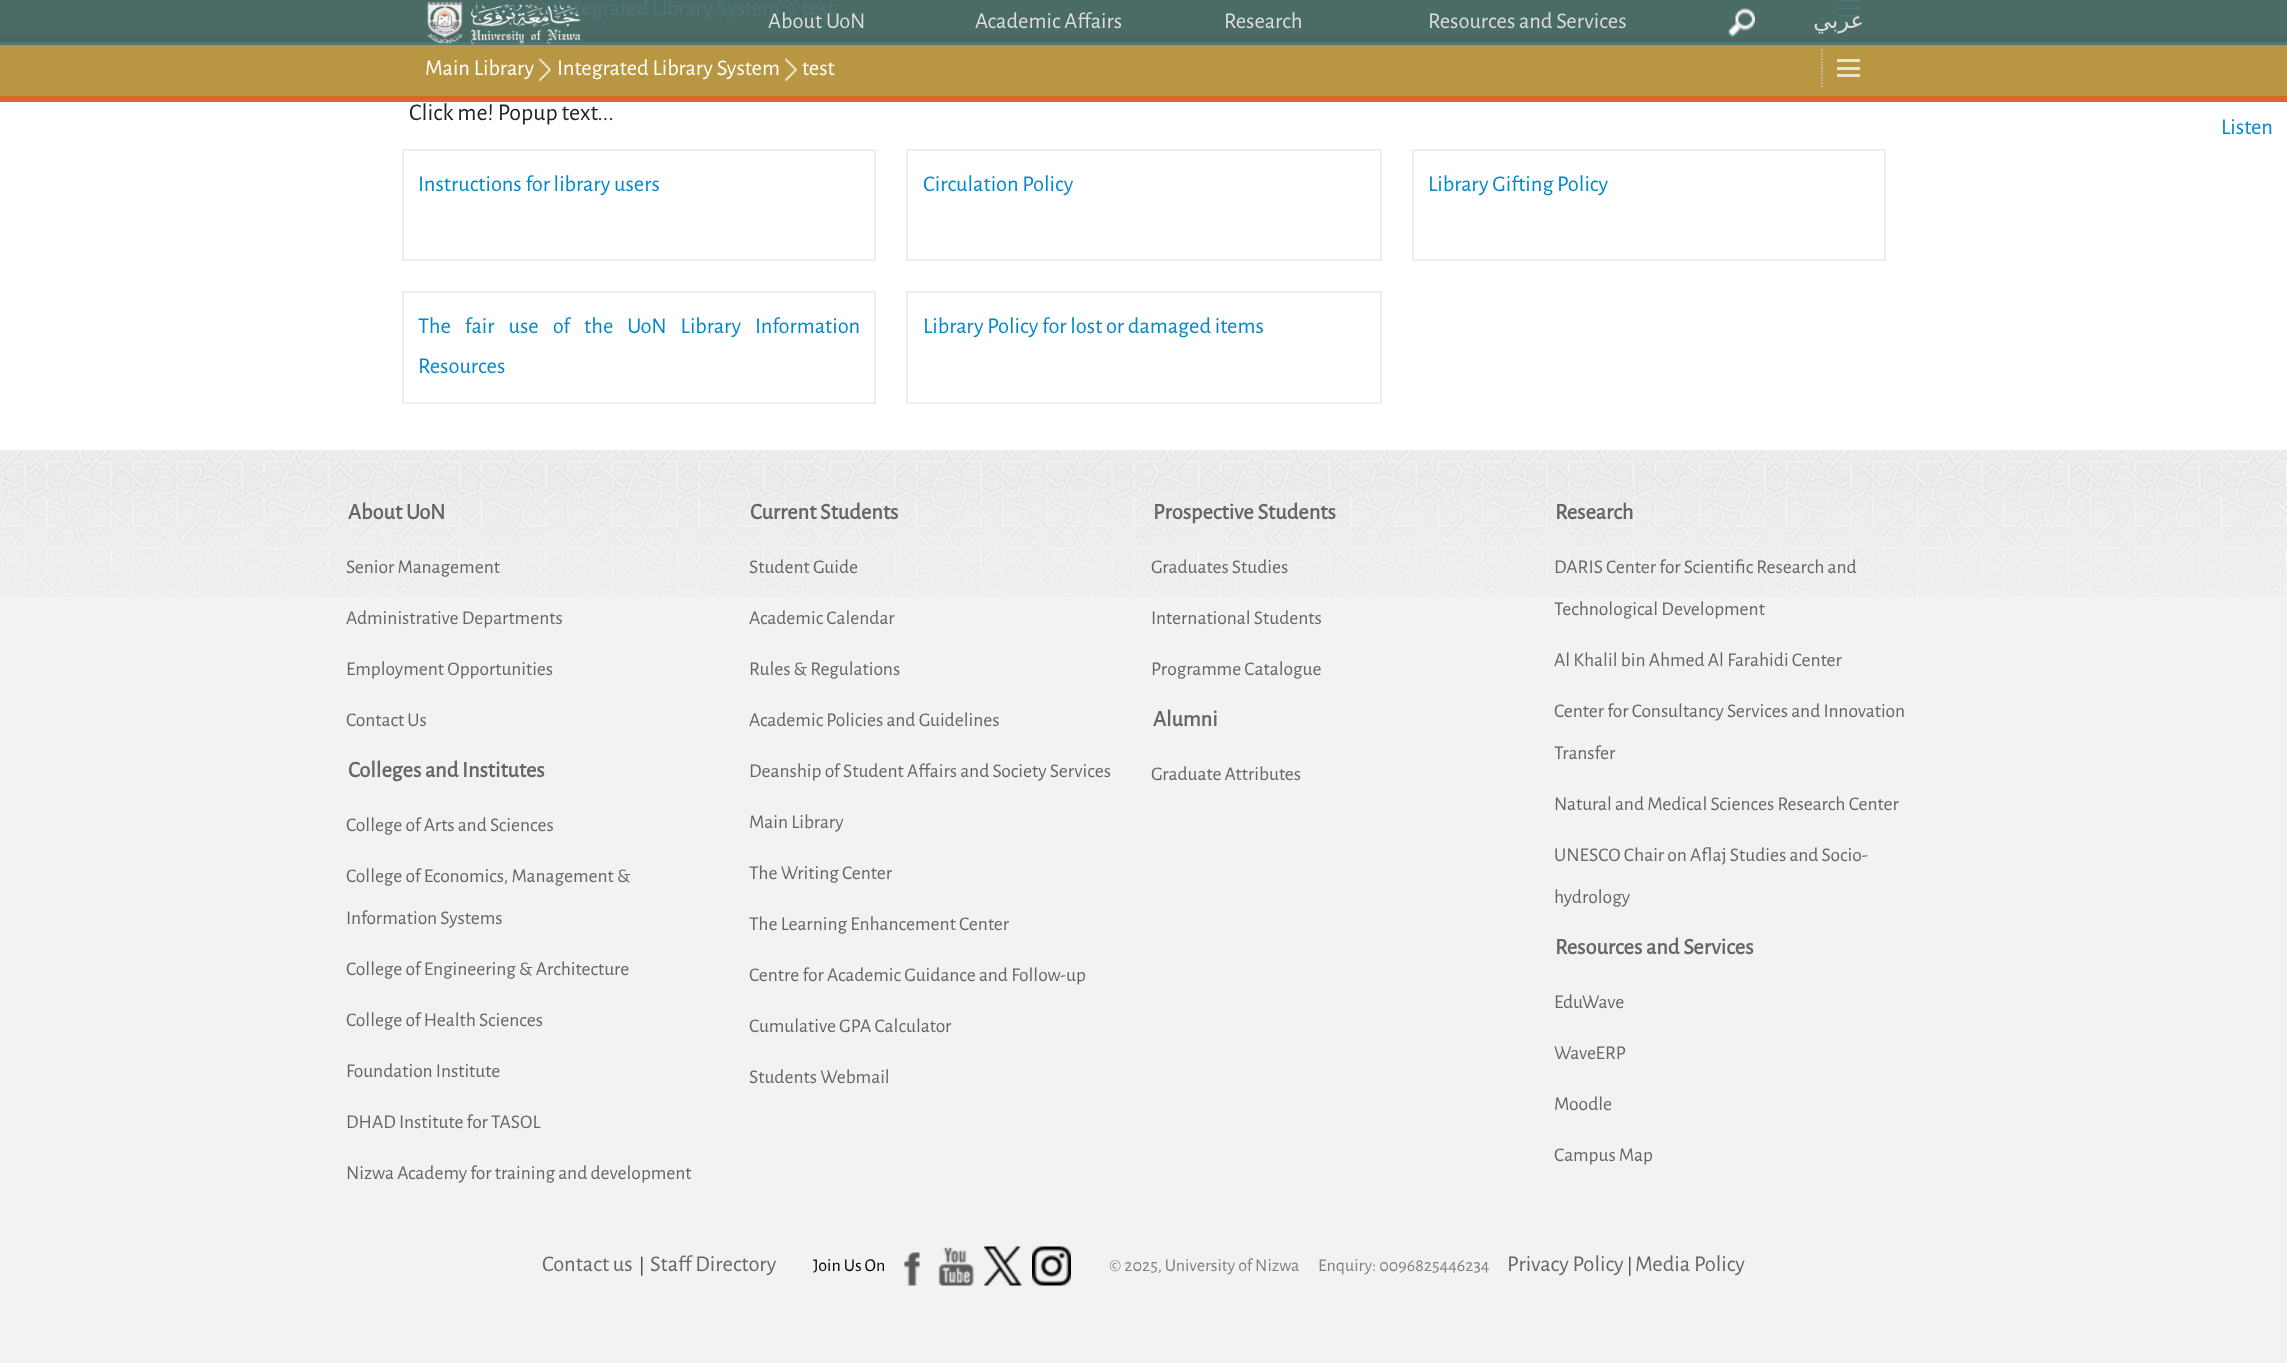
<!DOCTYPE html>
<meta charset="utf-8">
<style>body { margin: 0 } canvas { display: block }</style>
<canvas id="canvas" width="2287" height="1363"></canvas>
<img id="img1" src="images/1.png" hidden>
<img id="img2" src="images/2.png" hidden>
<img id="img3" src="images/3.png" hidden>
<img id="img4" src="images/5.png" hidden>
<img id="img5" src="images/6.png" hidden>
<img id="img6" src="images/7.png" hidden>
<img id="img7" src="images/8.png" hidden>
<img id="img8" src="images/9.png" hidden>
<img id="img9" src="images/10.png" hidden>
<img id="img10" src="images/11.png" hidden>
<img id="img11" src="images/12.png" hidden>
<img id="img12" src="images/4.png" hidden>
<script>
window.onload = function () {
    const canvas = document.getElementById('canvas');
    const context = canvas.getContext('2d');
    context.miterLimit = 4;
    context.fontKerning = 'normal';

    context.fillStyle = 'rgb(255, 255, 255)';
    context.fillRect(0, 0, 2287, 1363);
    context.fillStyle = 'rgb(81, 117, 121)';
    context.fillRect(0, 42, 2287, 3);
    context.fillStyle = 'rgb(78, 102, 99)';
    context.fillRect(0, 36, 2287, 6);
    context.fillStyle = 'rgb(74, 107, 102)';
    context.fillRect(0, 0, 2287, 36);
    context.drawImage(document.getElementById('img1'), 538, 0, 14, 21);
    context.drawImage(document.getElementById('img1'), 784, 0, 14, 21);
    context.beginPath();
    context.moveTo(1822, -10.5);
    context.lineTo(1822, 28.5);
    context.strokeStyle = 'rgb(76, 112, 116)';
    context.lineWidth = 1.5;
    context.setLineDash([1.5, 1.5]);
    context.stroke();
    context.drawImage(document.getElementById('img2'), 1837, 0, 23, 2);
    context.drawImage(document.getElementById('img3'), 1837, 7, 23, 2);
    context.drawImage(document.getElementById('img2'), 1837, 15, 23, 2);
    context.fillStyle = 'rgb(219, 104, 39)';
    context.fillRect(0, 96, 2287, 6);
    context.drawImage(document.getElementById('img4'), 1728, 8, 27, 29);
    context.fillStyle = 'rgb(185, 150, 66)';
    context.fillRect(0, 45, 2287, 51);
    context.drawImage(document.getElementById('img5'), 538, 58, 14, 24);
    context.drawImage(document.getElementById('img6'), 784, 58, 14, 24);
    context.beginPath();
    context.moveTo(1822, 49.5);
    context.lineTo(1822, 88.5);
    context.strokeStyle = 'rgb(204, 204, 204)';
    context.stroke();
    context.fillStyle = 'rgb(238, 229, 208)';
    context.fillRect(1837, 59, 23, 3);
    context.fillRect(1837, 67, 23, 3);
    context.fillRect(1837, 74, 23, 3);
    context.strokeStyle = 'rgb(238, 238, 238)';
    context.lineWidth = 2;
    context.setLineDash([]);
    context.strokeRect(403, 150, 472, 110);
    context.strokeRect(907, 150, 474, 110);
    context.strokeRect(1413, 150, 472, 110);
    context.strokeRect(403, 292, 472, 111);
    context.strokeRect(907, 292, 474, 111);
    context.fillStyle = 'rgb(242, 242, 241)';
    context.fillRect(0, 450, 2287, 913);
    context.drawImage(document.getElementById('img7'), 0, 450, 2287, 147);
    context.drawImage(document.getElementById('img8'), 904, 1252, 16, 34);
    context.drawImage(document.getElementById('img9'), 938, 1247, 36, 39);
    context.drawImage(document.getElementById('img10'), 984, 1246, 38, 40);
    context.drawImage(document.getElementById('img11'), 1032, 1246, 39, 40);
    context.font = '22.5px Alegreya Sans';
    context.fillStyle = 'rgb(81, 117, 121)';
    context.fillText('L', 474, 15);
    context.fillText('rary', 500, 15);
    context.fillText('Integrated Library System', 557, 15);
    context.fillText('test', 802, 15);
    context.drawImage(document.getElementById('img12'), 427, 1, 154, 44);
    context.fillStyle = 'rgb(221, 221, 221)';
    context.fillText('About UoN', 768, 28);
    context.fillText('Academic Affairs', 975, 28);
    context.fillText('Research', 1224, 28);
    context.fillText('Resources and Services', 1428, 28);
    context.direction = 'rtl';
    context.font = '22.5px DejaVu Sans';
    context.fillText('عربي', 1864, 28);
    context.direction = 'ltr';
    context.font = '22.5px Alegreya Sans';
    context.fillStyle = 'rgb(255, 255, 255)';
    context.fillText('Main Library', 425, 75);
    context.fillText('Integrated Library System', 557, 75);
    context.fillText('test', 802, 75);
    context.font = '24px Alegreya Sans';
    context.fillStyle = 'rgb(33, 37, 41)';
    context.fillText('Click me! Popup text...', 409, 120);
    context.font = '22.5px Alegreya Sans';
    context.fillStyle = 'rgb(0, 136, 204)';
    context.fillText('Instructions for library users', 418, 191);
    context.fillText('Circulation Policy', 923, 191);
    context.fillText('Library Gifting Policy', 1428, 191);
    context.wordSpacing = '10.25px';
    context.fillText('The fair use of the UoN Library Information', 418, 333);
    context.wordSpacing = '0px';
    context.fillText('Resources', 418, 373);
    context.fillText('Library Policy for lost or damaged items', 923, 333);
    context.fillText('Listen', 2221, 134);
    context.font = 'bold 22.5px Alegreya Sans';
    context.fillStyle = 'rgb(102, 102, 102)';
    context.fillText('About UoN', 348, 519);
    context.font = '19.5px Alegreya Sans';
    context.fillText('Senior Management', 346, 573);
    context.fillText('Administrative Departments', 346, 624);
    context.fillText('Employment Opportunities', 346, 675);
    context.fillText('Contact Us', 346, 726);
    context.font = 'bold 22.5px Alegreya Sans';
    context.fillText('Colleges and Institutes', 348, 777);
    context.font = '19.5px Alegreya Sans';
    context.fillText('College of Arts and Sciences', 346, 831);
    context.fillText('College of Economics, Management &', 346, 882);
    context.fillText('Information Systems', 346, 924);
    context.fillText('College of Engineering & Architecture', 346, 975);
    context.fillText('College of Health Sciences', 346, 1026);
    context.fillText('Foundation Institute', 346, 1077);
    context.fillText('DHAD Institute for TASOL', 346, 1128);
    context.fillText('Nizwa Academy for training and development', 346, 1179);
    context.font = 'bold 22.5px Alegreya Sans';
    context.fillText('Current Students', 750, 519);
    context.font = '19.5px Alegreya Sans';
    context.fillText('Student Guide', 749, 573);
    context.fillText('Academic Calendar', 749, 624);
    context.fillText('Rules & Regulations', 749, 675);
    context.fillText('Academic Policies and Guidelines', 749, 726);
    context.fillText('Deanship of Student Affairs and Society Services', 749, 777);
    context.fillText('Main Library', 749, 828);
    context.fillText('The Writing Center', 749, 879);
    context.fillText('The Learning Enhancement Center', 749, 930);
    context.fillText('Centre for Academic Guidance and Follow-up', 749, 981);
    context.fillText('Cumulative GPA Calculator', 749, 1032);
    context.fillText('Students Webmail', 749, 1083);
    context.font = 'bold 22.5px Alegreya Sans';
    context.fillText('Prospective Students', 1153, 519);
    context.font = '19.5px Alegreya Sans';
    context.fillText('Graduates Studies', 1151, 573);
    context.fillText('International Students', 1151, 624);
    context.fillText('Programme Catalogue', 1151, 675);
    context.font = 'bold 22.5px Alegreya Sans';
    context.fillText('Alumni', 1153, 726);
    context.font = '19.5px Alegreya Sans';
    context.fillText('Graduate Attributes', 1151, 780);
    context.font = 'bold 22.5px Alegreya Sans';
    context.fillText('Research', 1555, 519);
    context.font = '19.5px Alegreya Sans';
    context.fillText('DARIS Center for Scientific Research and', 1554, 573);
    context.fillText('Technological Development', 1554, 615);
    context.fillText('Al Khalil bin Ahmed Al Farahidi Center', 1554, 666);
    context.fillText('Center for Consultancy Services and Innovation', 1554, 717);
    context.fillText('Transfer', 1554, 759);
    context.fillText('Natural and Medical Sciences Research Center', 1554, 810);
    context.fillText('UNESCO Chair on Aflaj Studies and Socio-', 1554, 861);
    context.fillText('hydrology', 1554, 903);
    context.font = 'bold 22.5px Alegreya Sans';
    context.fillText('Resources and Services', 1555, 954);
    context.font = '19.5px Alegreya Sans';
    context.fillText('EduWave', 1554, 1008);
    context.fillText('WaveERP', 1554, 1059);
    context.fillText('Moodle', 1554, 1110);
    context.fillText('Campus Map', 1554, 1161);
    context.font = '22.5px Alegreya Sans';
    context.fillText('Contact us', 542, 1271);
    context.font = '18px Alegreya Sans';
    context.fillStyle = 'rgb(17, 17, 17)';
    context.fillText('|', 639, 1271);
    context.font = '22.5px Alegreya Sans';
    context.fillStyle = 'rgb(102, 102, 102)';
    context.fillText('Staff Directory', 650, 1271);
    context.font = '18px Alegreya Sans';
    context.fillStyle = 'rgb(0, 0, 0)';
    context.fillText('Join Us On', 813, 1271);
    context.fillStyle = 'rgb(128, 128, 128)';
    context.fillText('© 2025, University of Nizwa', 1109, 1271);
    context.fillText('Enquiry: 0096825446234', 1318, 1271);
    context.font = '22.5px Alegreya Sans';
    context.fillStyle = 'rgb(102, 102, 102)';
    context.fillText('Privacy Policy', 1507, 1271);
    context.font = '18px Alegreya Sans';
    context.fillStyle = 'rgb(33, 37, 41)';
    context.fillText('|', 1627, 1271);
    context.font = '22.5px Alegreya Sans';
    context.fillStyle = 'rgb(102, 102, 102)';
    context.fillText('Media Policy', 1635, 1271);
};
</script>
